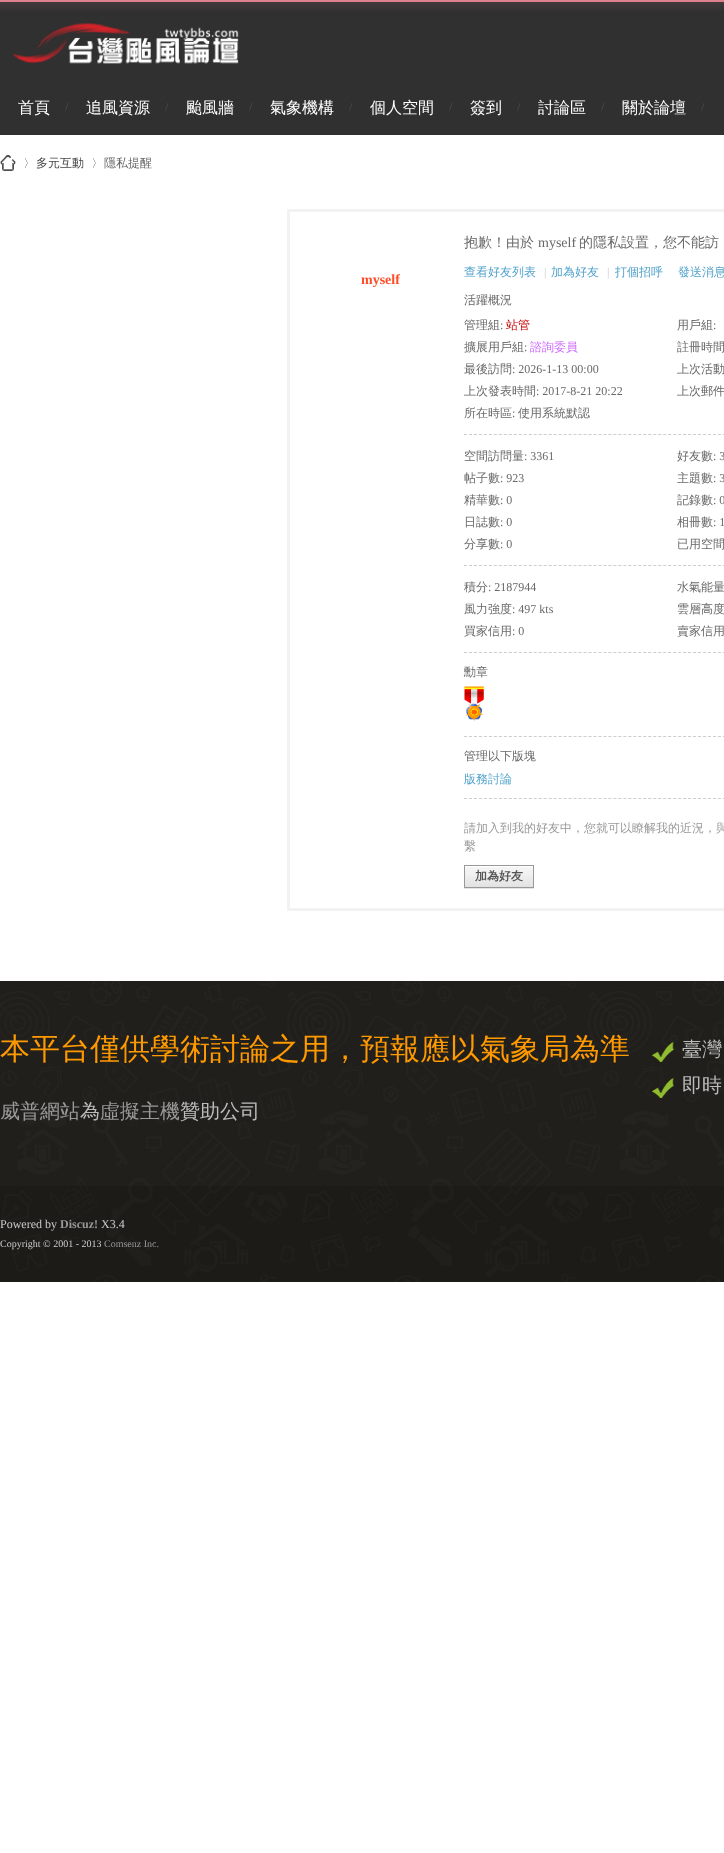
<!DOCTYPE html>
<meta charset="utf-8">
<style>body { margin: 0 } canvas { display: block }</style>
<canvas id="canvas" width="724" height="1853"></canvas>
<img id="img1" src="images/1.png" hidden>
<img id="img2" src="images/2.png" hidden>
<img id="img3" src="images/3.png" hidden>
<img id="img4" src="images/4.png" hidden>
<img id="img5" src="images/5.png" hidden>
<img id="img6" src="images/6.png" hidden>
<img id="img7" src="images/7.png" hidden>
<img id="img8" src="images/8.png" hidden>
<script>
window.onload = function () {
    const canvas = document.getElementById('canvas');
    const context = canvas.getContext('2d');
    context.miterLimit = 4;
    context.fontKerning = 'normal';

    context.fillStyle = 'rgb(255, 255, 255)';
    context.fillRect(0, 0, 724, 1853);
    context.fillStyle = 'rgb(48, 48, 48)';
    context.fillRect(0, 2, 724, 133);
    context.fillStyle = 'rgba(223, 130, 141, 0.09)';
    context.filter = 'blur(2.5px)';
    context.beginPath();
    context.rect(-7, -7, 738, 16);
    context.fill();
    context.filter = 'none';
    context.fillStyle = 'rgb(223, 129, 140)';
    context.fillRect(0, 0, 724, 2);
    context.drawImage(document.getElementById('img1'), 13, 22, 226, 42);
    context.drawImage(document.getElementById('img2'), 0, 155, 16, 16);
    context.drawImage(document.getElementById('img3'), 25, 158, 3, 10);
    context.drawImage(document.getElementById('img3'), 93, 158, 3, 10);
    context.strokeStyle = 'rgb(242, 242, 242)';
    context.lineWidth = 3;
    context.strokeRect(288.5, 210.5, 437, 699);
    context.beginPath();
    context.moveTo(464, 434.5);
    context.lineTo(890, 434.5);
    context.strokeStyle = 'rgb(205, 205, 205)';
    context.lineWidth = 1;
    context.setLineDash([3, 1.98]);
    context.stroke();
    context.beginPath();
    context.moveTo(464, 565.5);
    context.lineTo(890, 565.5);
    context.stroke();
    context.beginPath();
    context.moveTo(464, 652.5);
    context.lineTo(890, 652.5);
    context.stroke();
    context.beginPath();
    context.moveTo(464, 736.5);
    context.lineTo(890, 736.5);
    context.stroke();
    context.drawImage(document.getElementById('img4'), 464, 686, 20, 35);
    context.beginPath();
    context.moveTo(464, 798.5);
    context.lineTo(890, 798.5);
    context.stroke();
    context.fillStyle = 'rgb(229, 229, 229)';
    context.fillRect(464, 888, 70, 1);
    context.drawImage(document.getElementById('img5'), 465, 866, 68, 21);
    context.strokeStyle = 'rgb(153, 153, 153)';
    context.setLineDash([]);
    context.strokeRect(464.5, 865.5, 69, 22);
    context.drawImage(document.getElementById('img6'), 0, 981, 724, 301);
    context.drawImage(document.getElementById('img7'), 652, 1042, 22, 20);
    context.drawImage(document.getElementById('img8'), 652, 1078, 22, 20);
    context.fillStyle = 'rgba(0, 0, 0, 0.1)';
    context.fillRect(0, 1186, 724, 96);
    context.font = '500 16px WenQuanYi Zen Hei';
    context.fillStyle = 'rgb(255, 255, 255)';
    context.fillText('首頁', 18, 113);
    context.font = 'bold 12px Liberation Serif';
    context.fillStyle = 'rgb(70, 70, 70)';
    context.fillText('/', 65, 111);
    context.font = '500 16px WenQuanYi Zen Hei';
    context.fillStyle = 'rgb(255, 255, 255)';
    context.fillText('追風資源', 86, 113);
    context.font = 'bold 12px Liberation Serif';
    context.fillStyle = 'rgb(70, 70, 70)';
    context.fillText('/', 165, 111);
    context.font = '500 16px WenQuanYi Zen Hei';
    context.fillStyle = 'rgb(255, 255, 255)';
    context.fillText('颱風牆', 186, 113);
    context.font = 'bold 12px Liberation Serif';
    context.fillStyle = 'rgb(70, 70, 70)';
    context.fillText('/', 249, 111);
    context.font = '500 16px WenQuanYi Zen Hei';
    context.fillStyle = 'rgb(255, 255, 255)';
    context.fillText('氣象機構', 270, 113);
    context.font = 'bold 12px Liberation Serif';
    context.fillStyle = 'rgb(70, 70, 70)';
    context.fillText('/', 349, 111);
    context.font = '500 16px WenQuanYi Zen Hei';
    context.fillStyle = 'rgb(255, 255, 255)';
    context.fillText('個人空間', 370, 113);
    context.font = 'bold 12px Liberation Serif';
    context.fillStyle = 'rgb(70, 70, 70)';
    context.fillText('/', 449, 111);
    context.font = '500 16px WenQuanYi Zen Hei';
    context.fillStyle = 'rgb(255, 255, 255)';
    context.fillText('簽到', 470, 113);
    context.font = 'bold 12px Liberation Serif';
    context.fillStyle = 'rgb(70, 70, 70)';
    context.fillText('/', 517, 111);
    context.font = '500 16px WenQuanYi Zen Hei';
    context.fillStyle = 'rgb(255, 255, 255)';
    context.fillText('討論區', 538, 113);
    context.font = 'bold 12px Liberation Serif';
    context.fillStyle = 'rgb(70, 70, 70)';
    context.fillText('/', 601, 111);
    context.font = '500 16px WenQuanYi Zen Hei';
    context.fillStyle = 'rgb(255, 255, 255)';
    context.fillText('關於論壇', 622, 113);
    context.font = 'bold 12px Liberation Serif';
    context.fillStyle = 'rgb(70, 70, 70)';
    context.fillText('/', 701, 111);
    context.font = '500 12px WenQuanYi Zen Hei';
    context.fillText('多元互動', 36, 167);
    context.fillStyle = 'rgb(105, 105, 105)';
    context.fillText('隱私提醒', 104, 167);
    context.font = 'bold 14px Liberation Serif';
    context.fillStyle = 'rgb(255, 76, 40)';
    context.fillText('myself', 361, 284);
    context.font = '500 14px WenQuanYi Zen Hei';
    context.fillStyle = 'rgb(105, 105, 105)';
    context.fillText('抱歉！由於', 464, 247);
    context.font = '14px Liberation Serif';
    context.fillText('myself', 538, 247);
    context.font = '500 14px WenQuanYi Zen Hei';
    context.fillText('的隱私設置，您不能訪', 579, 247);
    context.font = '500 12px WenQuanYi Zen Hei';
    context.fillStyle = 'rgb(82, 163, 204)';
    context.fillText('查看好友列表', 464, 276);
    context.font = '12px Liberation Serif';
    context.fillStyle = 'rgb(204, 204, 204)';
    context.fillText('|', 544, 276);
    context.font = '500 12px WenQuanYi Zen Hei';
    context.fillStyle = 'rgb(82, 163, 204)';
    context.fillText('加為好友', 551, 276);
    context.font = '12px Liberation Serif';
    context.fillStyle = 'rgb(204, 204, 204)';
    context.fillText('|', 607, 276);
    context.font = '500 12px WenQuanYi Zen Hei';
    context.fillStyle = 'rgb(82, 163, 204)';
    context.fillText('打個招呼', 615, 276);
    context.fillText('發送消息', 678, 276);
    context.fillStyle = 'rgb(105, 105, 105)';
    context.fillText('活躍概況', 464, 304);
    context.fillText('管理組', 464, 329);
    context.font = '12px Liberation Serif';
    context.fillText(':', 500, 329);
    context.font = '500 12px WenQuanYi Zen Hei';
    context.fillStyle = 'rgb(204, 0, 0)';
    context.fillText('站管', 506, 329);
    context.fillStyle = 'rgb(105, 105, 105)';
    context.fillText('用戶組', 677, 329);
    context.font = '12px Liberation Serif';
    context.fillText(':', 713, 329);
    context.font = '500 12px WenQuanYi Zen Hei';
    context.fillText('擴展用戶組', 464, 351);
    context.font = '12px Liberation Serif';
    context.fillText(':', 524, 351);
    context.font = '500 12px WenQuanYi Zen Hei';
    context.fillStyle = 'rgb(204, 102, 255)';
    context.fillText('諮詢委員', 530, 351);
    context.fillStyle = 'rgb(105, 105, 105)';
    context.fillText('註冊時間', 677, 351);
    context.fillText('最後訪問', 464, 373);
    context.font = '12px Liberation Serif';
    context.fillText(': 2026-1-13 00:00', 512, 373);
    context.font = '500 12px WenQuanYi Zen Hei';
    context.fillText('上次活動', 677, 373);
    context.fillText('上次發表時間', 464, 395);
    context.font = '12px Liberation Serif';
    context.fillText(': 2017-8-21 20:22', 536, 395);
    context.font = '500 12px WenQuanYi Zen Hei';
    context.fillText('上次郵件', 677, 395);
    context.fillText('所在時區', 464, 417);
    context.font = '12px Liberation Serif';
    context.fillText(':', 512, 417);
    context.font = '500 12px WenQuanYi Zen Hei';
    context.fillText('使用系統默認', 518, 417);
    context.fillText('空間訪問量', 464, 460);
    context.font = '12px Liberation Serif';
    context.fillText(': 3361', 524, 460);
    context.font = '500 12px WenQuanYi Zen Hei';
    context.fillText('好友數', 677, 460);
    context.font = '12px Liberation Serif';
    context.fillText(': 3', 713, 460);
    context.font = '500 12px WenQuanYi Zen Hei';
    context.fillText('帖子數', 464, 482);
    context.font = '12px Liberation Serif';
    context.fillText(': 923', 500, 482);
    context.font = '500 12px WenQuanYi Zen Hei';
    context.fillText('主題數', 677, 482);
    context.font = '12px Liberation Serif';
    context.fillText(': 3', 713, 482);
    context.font = '500 12px WenQuanYi Zen Hei';
    context.fillText('精華數', 464, 504);
    context.font = '12px Liberation Serif';
    context.fillText(': 0', 500, 504);
    context.font = '500 12px WenQuanYi Zen Hei';
    context.fillText('記錄數', 677, 504);
    context.font = '12px Liberation Serif';
    context.fillText(': 0', 713, 504);
    context.font = '500 12px WenQuanYi Zen Hei';
    context.fillText('日誌數', 464, 526);
    context.font = '12px Liberation Serif';
    context.fillText(': 0', 500, 526);
    context.font = '500 12px WenQuanYi Zen Hei';
    context.fillText('相冊數', 677, 526);
    context.font = '12px Liberation Serif';
    context.fillText(': 1', 713, 526);
    context.font = '500 12px WenQuanYi Zen Hei';
    context.fillText('分享數', 464, 548);
    context.font = '12px Liberation Serif';
    context.fillText(': 0', 500, 548);
    context.font = '500 12px WenQuanYi Zen Hei';
    context.fillText('已用空間', 677, 548);
    context.fillText('積分', 464, 591);
    context.font = '12px Liberation Serif';
    context.fillText(': 2187944', 488, 591);
    context.font = '500 12px WenQuanYi Zen Hei';
    context.fillText('水氣能量', 677, 591);
    context.fillText('風力強度', 464, 613);
    context.font = '12px Liberation Serif';
    context.fillText(': 497 kts', 512, 613);
    context.font = '500 12px WenQuanYi Zen Hei';
    context.fillText('雲層高度', 677, 613);
    context.fillText('買家信用', 464, 635);
    context.font = '12px Liberation Serif';
    context.fillText(': 0', 512, 635);
    context.font = '500 12px WenQuanYi Zen Hei';
    context.fillText('賣家信用', 677, 635);
    context.fillText('勳章', 464, 676);
    context.fillText('管理以下版塊', 464, 760);
    context.fillStyle = 'rgb(82, 163, 204)';
    context.fillText('版務討論', 464, 783);
    context.fillStyle = 'rgb(153, 153, 153)';
    context.fillText('請加入到我的好友中，您就可以瞭解我的近況，與', 464, 832);
    context.fillText('繫', 464, 850);
    context.font = 'bold 12px WenQuanYi Zen Hei';
    context.fillStyle = 'rgb(85, 85, 85)';
    context.fillText('加為好友', 475, 880);
    context.font = '500 30px WenQuanYi Zen Hei';
    context.fillStyle = 'rgb(255, 153, 0)';
    context.fillText('本平台僅供學術討論之用，預報應以氣象局為準', 0, 1059);
    context.font = '500 20px WenQuanYi Zen Hei';
    context.fillStyle = 'rgb(187, 187, 187)';
    context.fillText('臺灣', 682, 1056);
    context.fillText('即時', 682, 1092);
    context.fillStyle = 'rgb(153, 153, 153)';
    context.fillText('威普網站', 0, 1118);
    context.fillStyle = 'rgb(187, 187, 187)';
    context.fillText('為', 80, 1118);
    context.fillStyle = 'rgb(153, 153, 153)';
    context.fillText('虛擬主機', 100, 1118);
    context.fillStyle = 'rgb(187, 187, 187)';
    context.fillText('贊助公司', 180, 1118);
    context.font = '12px Liberation Serif';
    context.fillStyle = 'rgb(204, 204, 204)';
    context.fillText('Powered by', 0, 1228);
    context.font = 'bold 12px Liberation Serif';
    context.fillStyle = 'rgb(153, 153, 153)';
    context.fillText('Discuz!', 60, 1228);
    context.font = '12px Liberation Serif';
    context.fillStyle = 'rgb(204, 204, 204)';
    context.fillText('X3.4', 101, 1228);
    context.font = '10px Liberation Serif';
    context.fillText('Copyright © 2001 - 2013', 0, 1247);
    context.fillStyle = 'rgb(153, 153, 153)';
    context.fillText('Comsenz Inc.', 104, 1247);
};
</script>
